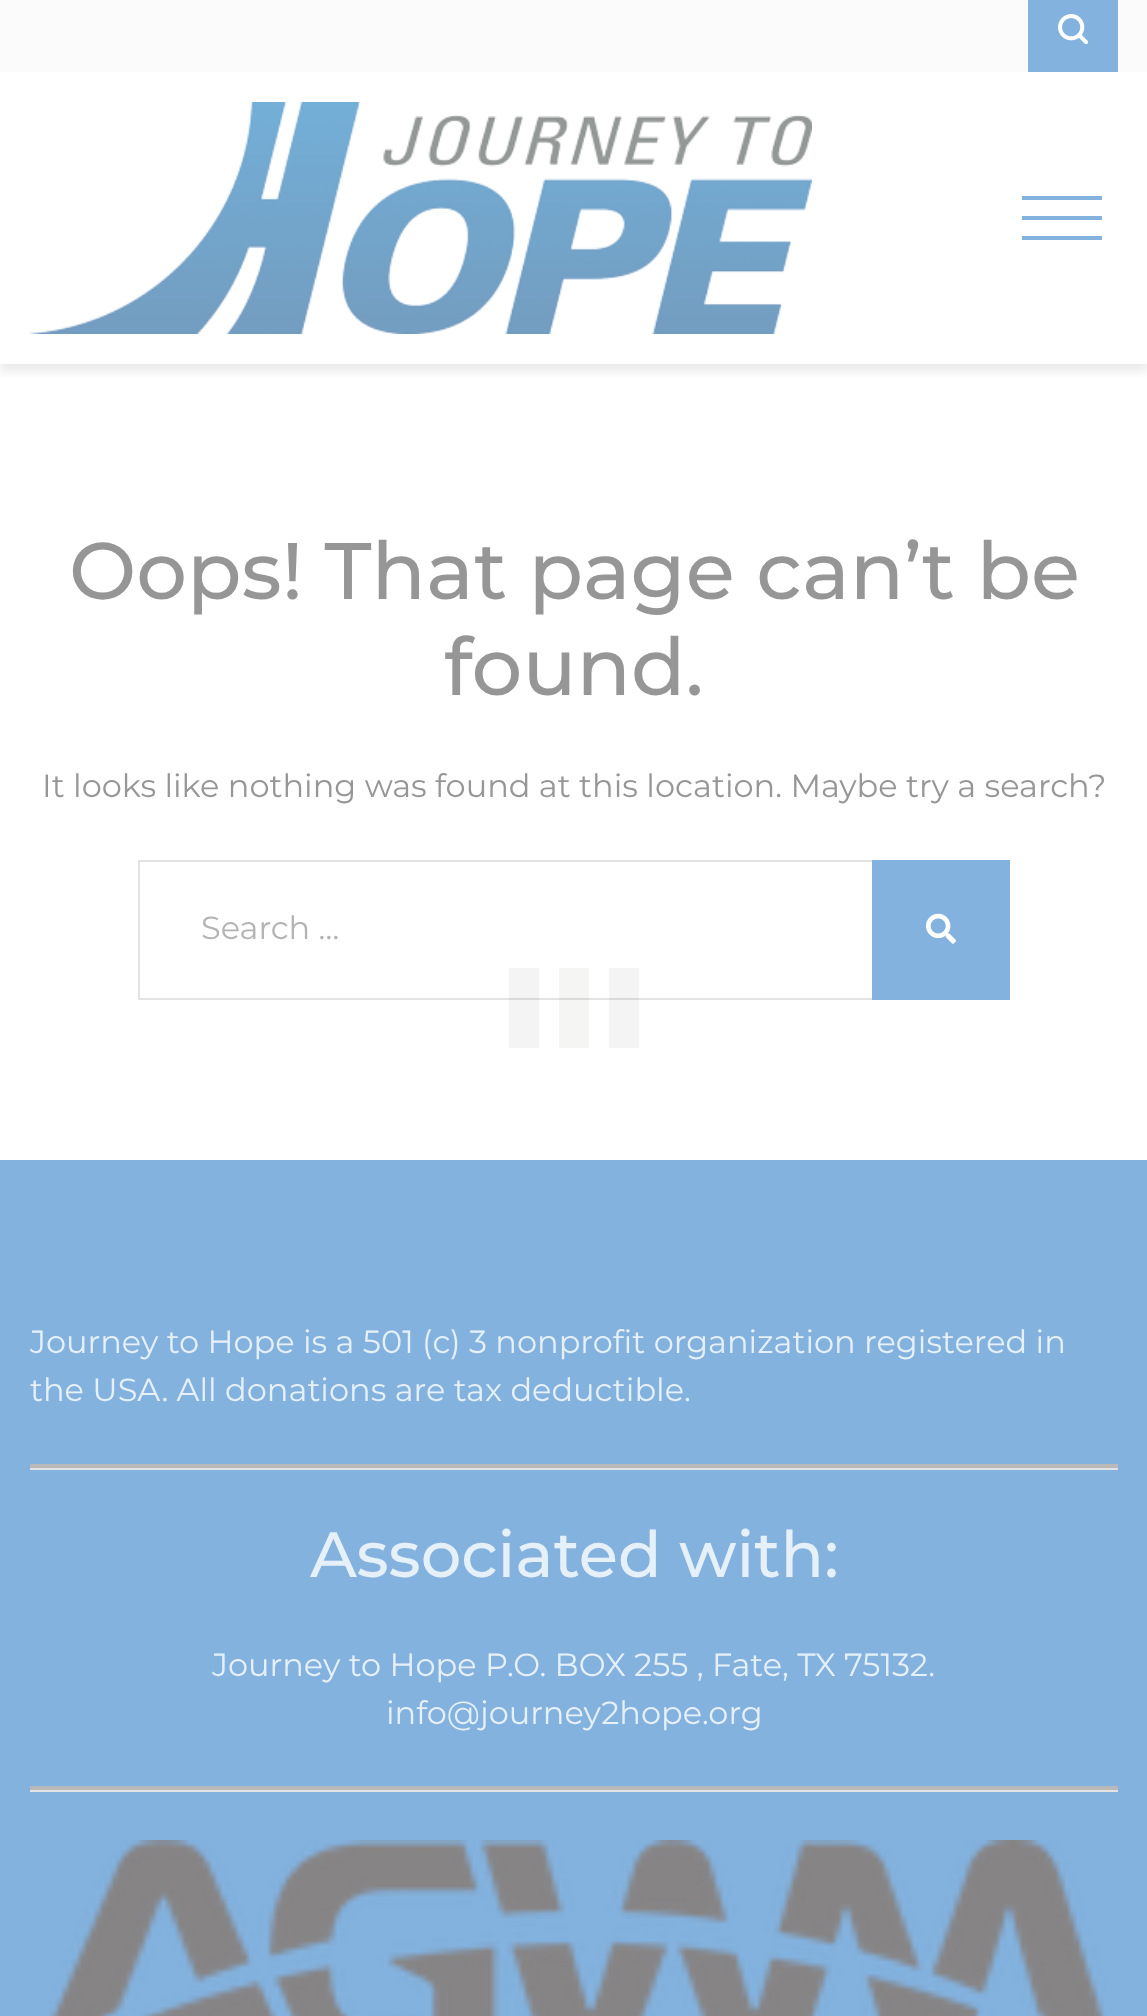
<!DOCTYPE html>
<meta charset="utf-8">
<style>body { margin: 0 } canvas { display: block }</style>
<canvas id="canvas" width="1147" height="2016"></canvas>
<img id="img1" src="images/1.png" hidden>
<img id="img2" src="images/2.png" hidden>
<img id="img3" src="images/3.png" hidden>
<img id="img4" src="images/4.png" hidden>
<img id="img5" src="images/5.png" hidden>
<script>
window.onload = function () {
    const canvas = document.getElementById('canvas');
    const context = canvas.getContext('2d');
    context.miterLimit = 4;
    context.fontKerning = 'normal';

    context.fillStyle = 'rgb(255, 255, 255)';
    context.fillRect(0, 0, 1147, 2016);
    context.save();
    context.beginPath();
    context.rect(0, 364, 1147, 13);
    context.clip();
    context.fillStyle = 'rgba(115, 115, 115, 0.14)';
    context.filter = 'blur(5px)';
    context.beginPath();
    context.rect(0, -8, 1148, 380);
    context.fill();
    context.filter = 'none';
    context.restore();
    context.fillStyle = 'rgb(251, 251, 251)';
    context.fillRect(0, 0, 1147, 72);
    context.fillStyle = 'rgb(131, 178, 223)';
    context.fillRect(1028, 0, 90, 72);
    context.drawImage(document.getElementById('img1'), 1058, 14, 30, 30);
    context.drawImage(document.getElementById('img2'), 30, 102, 782, 232);
    context.fillRect(1022, 196, 80, 4);
    context.fillRect(1022, 216, 80, 4);
    context.fillRect(1022, 236, 80, 4);
    context.strokeStyle = 'rgb(227, 227, 227)';
    context.lineWidth = 2;
    context.strokeRect(139, 861, 870, 138);
    context.fillRect(872, 860, 138, 140);
    context.drawImage(document.getElementById('img3'), 926, 913, 30, 31);
    context.drawImage(document.getElementById('img4'), 509, 968, 130, 80);
    context.fillRect(0, 1160, 1147, 856);
    context.fillStyle = 'rgb(227, 227, 227)';
    context.fillRect(30, 1468, 1088, 2);
    context.fillStyle = 'rgb(185, 185, 185)';
    context.fillRect(30, 1464, 1088, 4);
    context.fillStyle = 'rgb(227, 227, 227)';
    context.fillRect(30, 1790, 1088, 2);
    context.fillStyle = 'rgb(185, 185, 185)';
    context.fillRect(30, 1786, 1088, 4);
    context.drawImage(document.getElementById('img5'), 49, 1840, 1058, 176);
    context.font = '500 80px Montserrat';
    context.fillStyle = 'rgb(150, 150, 150)';
    context.fillText('Oops! That page can’t be', 69, 599);
    context.fillText('found.', 444, 695);
    context.font = '32px Montserrat';
    context.fillText('It looks like nothing was found at this location. Maybe try a search?', 42, 797);
    context.fillStyle = 'rgb(179, 179, 179)';
    context.fillText('Search …', 201, 939);
    context.fillStyle = 'rgb(230, 240, 248)';
    context.fillText('Journey to Hope is a 501 (c) 3 nonprofit organization registered in', 30, 1353);
    context.fillText('the USA. All donations are tax deductible.', 30, 1401);
    context.font = '500 64px Montserrat';
    context.fillText('Associated with:', 310, 1577);
    context.font = '32px Montserrat';
    context.fillText('Journey to Hope P.O. BOX 255 , Fate, TX 75132.', 212, 1676);
    context.fillText('info@journey2hope.org', 386, 1724);
};
</script>
